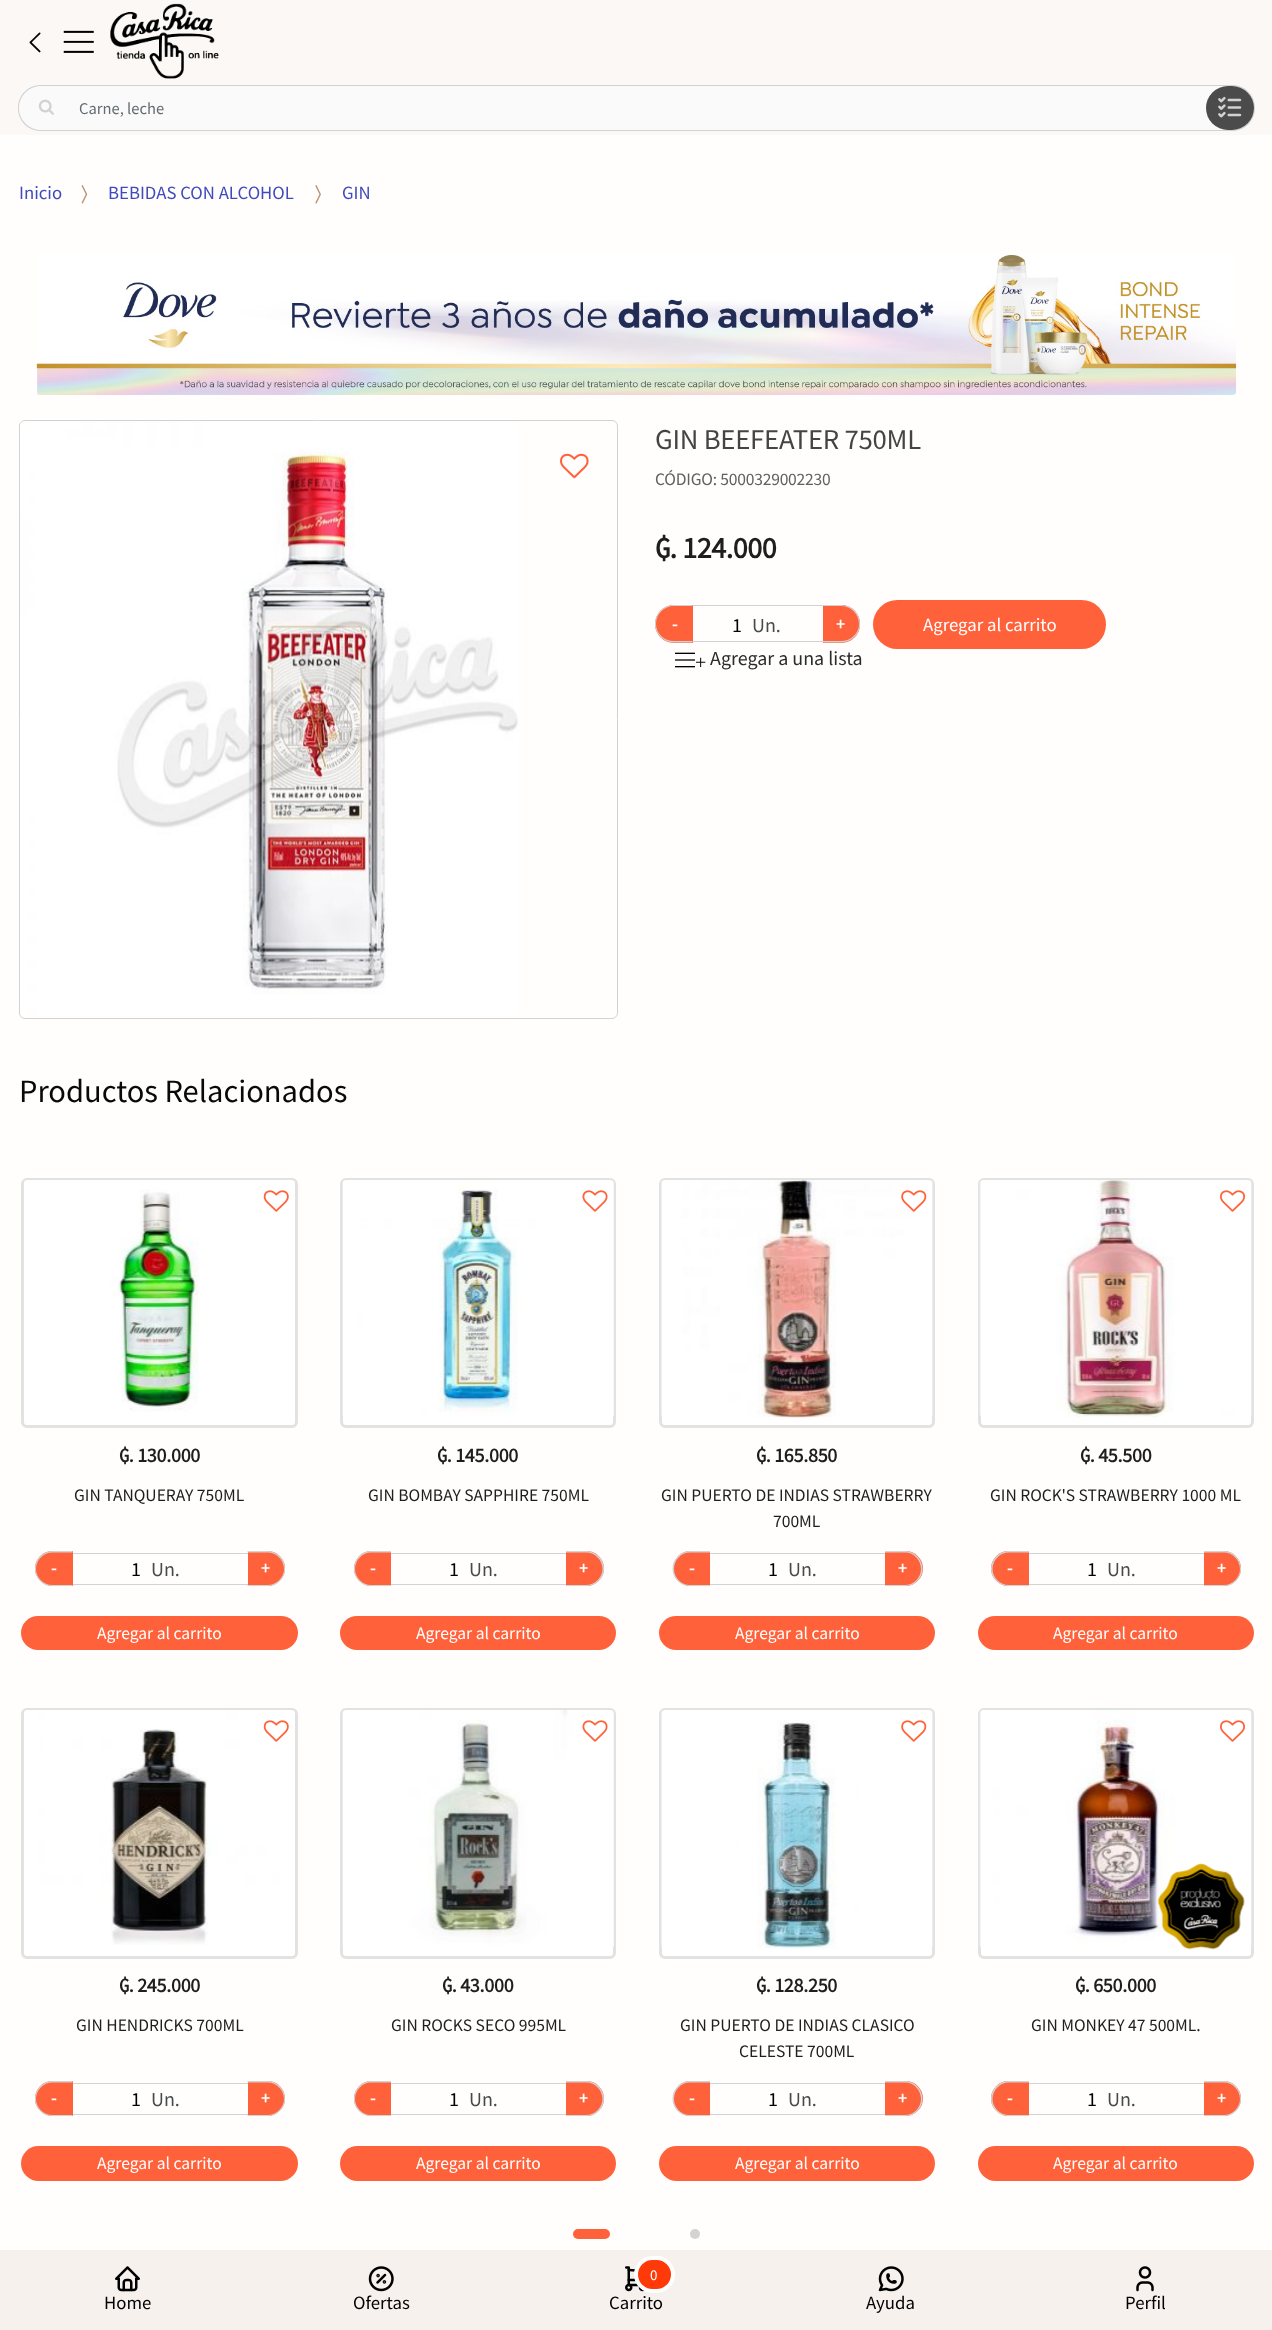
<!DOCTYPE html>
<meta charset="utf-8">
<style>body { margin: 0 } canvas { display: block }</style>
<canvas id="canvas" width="1272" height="2330"></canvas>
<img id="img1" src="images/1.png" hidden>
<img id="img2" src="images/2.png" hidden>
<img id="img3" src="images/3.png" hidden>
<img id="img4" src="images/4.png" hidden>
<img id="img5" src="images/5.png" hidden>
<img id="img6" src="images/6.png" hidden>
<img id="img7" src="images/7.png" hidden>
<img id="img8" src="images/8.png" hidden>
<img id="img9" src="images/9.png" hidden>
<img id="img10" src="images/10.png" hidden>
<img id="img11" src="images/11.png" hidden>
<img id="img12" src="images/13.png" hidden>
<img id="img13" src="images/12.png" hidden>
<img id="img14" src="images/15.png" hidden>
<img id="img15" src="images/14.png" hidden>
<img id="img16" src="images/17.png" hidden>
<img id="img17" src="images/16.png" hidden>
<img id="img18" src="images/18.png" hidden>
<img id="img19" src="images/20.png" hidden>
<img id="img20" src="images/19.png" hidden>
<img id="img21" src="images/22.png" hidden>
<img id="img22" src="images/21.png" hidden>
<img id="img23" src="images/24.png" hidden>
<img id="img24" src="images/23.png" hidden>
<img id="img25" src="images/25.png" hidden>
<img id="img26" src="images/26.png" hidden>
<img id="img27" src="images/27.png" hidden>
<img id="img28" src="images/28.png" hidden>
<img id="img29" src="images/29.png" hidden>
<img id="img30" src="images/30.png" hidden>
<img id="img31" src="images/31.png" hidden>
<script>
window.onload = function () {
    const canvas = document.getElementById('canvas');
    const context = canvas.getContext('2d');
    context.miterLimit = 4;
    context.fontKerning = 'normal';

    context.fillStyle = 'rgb(255, 254, 252)';
    context.fillRect(0, 0, 1272, 2330);
    context.fillStyle = 'rgb(251, 248, 246)';
    context.fillRect(0, 0, 1272, 135);
    context.drawImage(document.getElementById('img1'), 29, 32, 12, 21);
    context.drawImage(document.getElementById('img2'), 63, 30, 31, 23);
    context.drawImage(document.getElementById('img3'), 110, 3, 109, 76);
    context.fillStyle = 'rgb(210, 210, 210)';
    context.fillRect(73, 85, 1133, 1);
    context.fillRect(73, 130, 1133, 1);
    context.fillStyle = 'rgb(250, 250, 250)';
    context.beginPath();
    context.roundRect(18, 85, 56, 46, [23, 0, 0, 23]);
    context.fill();
    context.fillStyle = 'rgb(210, 210, 210)';
    context.beginPath();
    context.moveTo(41, 85);
    context.lineTo(74, 85);
    context.lineTo(74, 131);
    context.lineTo(41, 131);
    context.bezierCurveTo(28, 131, 18, 121, 18, 108);
    context.bezierCurveTo(18, 95, 28, 85, 41, 85);
    context.closePath();
    context.moveTo(41, 86);
    context.lineTo(74, 86);
    context.lineTo(74, 130);
    context.lineTo(41, 130);
    context.bezierCurveTo(29, 130, 19, 120, 19, 108);
    context.bezierCurveTo(19, 96, 29, 86, 41, 86);
    context.closePath();
    context.fill('evenodd');
    context.drawImage(document.getElementById('img4'), 38, 99, 16, 16);
    context.fillStyle = 'rgb(250, 250, 250)';
    context.fillRect(74, 86, 1132, 44);
    context.beginPath();
    context.roundRect(1206, 86, 48, 44, [0, 22, 22, 0]);
    context.fill();
    context.fillStyle = 'rgb(210, 210, 210)';
    context.beginPath();
    context.moveTo(1206, 85);
    context.lineTo(1232, 85);
    context.bezierCurveTo(1245, 85, 1255, 95, 1255, 108);
    context.bezierCurveTo(1255, 121, 1245, 131, 1232, 131);
    context.lineTo(1206, 131);
    context.closePath();
    context.moveTo(1206, 86);
    context.lineTo(1232, 86);
    context.bezierCurveTo(1244, 86, 1254, 96, 1254, 108);
    context.bezierCurveTo(1254, 120, 1244, 130, 1232, 130);
    context.lineTo(1206, 130);
    context.closePath();
    context.fill('evenodd');
    context.fillStyle = 'rgb(75, 75, 75)';
    context.beginPath();
    context.roundRect(1206, 86, 48, 44, 22);
    context.fill();
    context.drawImage(document.getElementById('img5'), 1218, 96, 24, 22);
    context.drawImage(document.getElementById('img6'), 81, 185, 7, 19);
    context.drawImage(document.getElementById('img7'), 315, 185, 6, 19);
    context.drawImage(document.getElementById('img8'), 36, 253, 1201, 142);
    context.beginPath();
    context.roundRect(19.5, 420.5, 598, 598, 5.5);
    context.strokeStyle = 'rgb(210, 210, 210)';
    context.stroke();
    context.drawImage(document.getElementById('img9'), 20, 421, 498, 594);
    context.drawImage(document.getElementById('img10'), 560, 453, 29, 26);
    context.fillStyle = 'rgb(210, 210, 210)';
    context.fillRect(691, 605, 133, 1);
    context.fillRect(691, 641, 133, 1);
    context.fillStyle = 'rgb(255, 98, 59)';
    context.beginPath();
    context.roundRect(655, 605, 38, 38, [19, 0, 0, 19]);
    context.fill();
    context.fillStyle = 'rgb(210, 210, 210)';
    context.beginPath();
    context.moveTo(674, 605);
    context.lineTo(692.5, 605);
    context.lineTo(692.5, 642.5);
    context.lineTo(674, 642.5);
    context.bezierCurveTo(663.5, 642.5, 655, 634, 655, 624);
    context.bezierCurveTo(655, 613.5, 663.5, 605, 674, 605);
    context.closePath();
    context.moveTo(674, 606);
    context.lineTo(692.5, 606);
    context.lineTo(692.5, 641);
    context.lineTo(674, 641);
    context.bezierCurveTo(664, 641, 656, 633.5, 656, 624);
    context.bezierCurveTo(656, 614, 664, 606, 674, 606);
    context.closePath();
    context.fill('evenodd');
    context.fillStyle = 'rgb(255, 98, 59)';
    context.beginPath();
    context.roundRect(823, 605, 37, 38, [0, 18.5, 18.5, 0]);
    context.fill();
    context.fillStyle = 'rgb(210, 210, 210)';
    context.beginPath();
    context.moveTo(822.5, 605);
    context.lineTo(841, 605);
    context.bezierCurveTo(851.5, 605, 860, 613.5, 860, 624);
    context.bezierCurveTo(860, 634, 851.5, 642.5, 841, 642.5);
    context.lineTo(822.5, 642.5);
    context.closePath();
    context.moveTo(822.5, 606);
    context.lineTo(841, 606);
    context.bezierCurveTo(851, 606, 859, 614, 859, 624);
    context.bezierCurveTo(859, 633.5, 851, 641, 841, 641);
    context.lineTo(822.5, 641);
    context.closePath();
    context.fill('evenodd');
    context.fillStyle = 'rgb(255, 98, 59)';
    context.beginPath();
    context.roundRect(873, 600, 233, 49, 24.5);
    context.fill();
    context.drawImage(document.getElementById('img11'), 675, 652, 20, 16);
    context.fillStyle = 'rgb(255, 255, 255)';
    context.beginPath();
    context.roundRect(22.5, 1179.5, 274, 247, 4.5);
    context.fill();
    context.strokeStyle = 'rgb(226, 226, 226)';
    context.lineWidth = 3;
    context.stroke();
    context.drawImage(document.getElementById('img12'), 24, 1180, 271, 232);
    context.drawImage(document.getElementById('img13'), 263, 1190, 26, 22);
    context.fillStyle = 'rgb(210, 210, 210)';
    context.fillRect(71, 1553, 178, 1);
    context.fillRect(71, 1584, 178, 1);
    context.fillStyle = 'rgb(255, 98, 59)';
    context.beginPath();
    context.roundRect(35, 1551, 38, 35, [17.5, 0, 0, 17.5]);
    context.fill();
    context.fillStyle = 'rgb(210, 210, 210)';
    context.beginPath();
    context.moveTo(52.5, 1551);
    context.lineTo(72.5, 1551);
    context.lineTo(72.5, 1586);
    context.lineTo(52.5, 1586);
    context.bezierCurveTo(43, 1586, 35, 1578.5, 35, 1569);
    context.bezierCurveTo(35, 1559, 43, 1551, 52.5, 1551);
    context.closePath();
    context.moveTo(52.5, 1552.5);
    context.lineTo(72.5, 1552.5);
    context.lineTo(72.5, 1585);
    context.lineTo(52.5, 1585);
    context.bezierCurveTo(43.5, 1585, 36, 1577.5, 36, 1569);
    context.bezierCurveTo(36, 1560, 43.5, 1552.5, 52.5, 1552.5);
    context.closePath();
    context.fill('evenodd');
    context.fillStyle = 'rgb(255, 98, 59)';
    context.beginPath();
    context.roundRect(248, 1551, 37, 35, [0, 17.5, 17.5, 0]);
    context.fill();
    context.fillStyle = 'rgb(210, 210, 210)';
    context.beginPath();
    context.moveTo(247.5, 1551);
    context.lineTo(267.5, 1551);
    context.bezierCurveTo(277, 1551, 285, 1559, 285, 1569);
    context.bezierCurveTo(285, 1578.5, 277, 1586, 267.5, 1586);
    context.lineTo(247.5, 1586);
    context.closePath();
    context.moveTo(247.5, 1552.5);
    context.lineTo(267.5, 1552.5);
    context.bezierCurveTo(276.5, 1552.5, 284, 1560, 284, 1569);
    context.bezierCurveTo(284, 1577.5, 276.5, 1585, 267.5, 1585);
    context.lineTo(247.5, 1585);
    context.closePath();
    context.fill('evenodd');
    context.fillStyle = 'rgb(255, 98, 59)';
    context.beginPath();
    context.roundRect(21, 1616, 277, 34, 17);
    context.fill();
    context.fillStyle = 'rgb(255, 255, 255)';
    context.beginPath();
    context.roundRect(22.5, 1709.5, 274, 248, 4.5);
    context.fill();
    context.stroke();
    context.drawImage(document.getElementById('img14'), 24, 1710, 271, 235);
    context.drawImage(document.getElementById('img15'), 263, 1720, 26, 22);
    context.fillStyle = 'rgb(210, 210, 210)';
    context.fillRect(71, 2083, 178, 1);
    context.fillRect(71, 2114, 178, 1);
    context.fillStyle = 'rgb(255, 98, 59)';
    context.beginPath();
    context.roundRect(35, 2081, 38, 35, [17.5, 0, 0, 17.5]);
    context.fill();
    context.fillStyle = 'rgb(210, 210, 210)';
    context.beginPath();
    context.moveTo(52.5, 2081);
    context.lineTo(72.5, 2081);
    context.lineTo(72.5, 2116);
    context.lineTo(52.5, 2116);
    context.bezierCurveTo(43, 2116, 35, 2108.5, 35, 2099);
    context.bezierCurveTo(35, 2089, 43, 2081, 52.5, 2081);
    context.closePath();
    context.moveTo(52.5, 2082.5);
    context.lineTo(72.5, 2082.5);
    context.lineTo(72.5, 2115);
    context.lineTo(52.5, 2115);
    context.bezierCurveTo(43.5, 2115, 36, 2107.5, 36, 2099);
    context.bezierCurveTo(36, 2090, 43.5, 2082.5, 52.5, 2082.5);
    context.closePath();
    context.fill('evenodd');
    context.fillStyle = 'rgb(255, 98, 59)';
    context.beginPath();
    context.roundRect(248, 2081, 37, 35, [0, 17.5, 17.5, 0]);
    context.fill();
    context.fillStyle = 'rgb(210, 210, 210)';
    context.beginPath();
    context.moveTo(247.5, 2081);
    context.lineTo(267.5, 2081);
    context.bezierCurveTo(277, 2081, 285, 2089, 285, 2099);
    context.bezierCurveTo(285, 2108.5, 277, 2116, 267.5, 2116);
    context.lineTo(247.5, 2116);
    context.closePath();
    context.moveTo(247.5, 2082.5);
    context.lineTo(267.5, 2082.5);
    context.bezierCurveTo(276.5, 2082.5, 284, 2090, 284, 2099);
    context.bezierCurveTo(284, 2107.5, 276.5, 2115, 267.5, 2115);
    context.lineTo(247.5, 2115);
    context.closePath();
    context.fill('evenodd');
    context.fillStyle = 'rgb(255, 98, 59)';
    context.beginPath();
    context.roundRect(21, 2146, 277, 35, 17.5);
    context.fill();
    context.fillStyle = 'rgb(255, 255, 255)';
    context.beginPath();
    context.roundRect(341.5, 1179.5, 273, 247, 4.5);
    context.fill();
    context.stroke();
    context.drawImage(document.getElementById('img16'), 342, 1180, 272, 236);
    context.drawImage(document.getElementById('img17'), 582, 1190, 26, 22);
    context.fillStyle = 'rgb(210, 210, 210)';
    context.fillRect(390, 1553, 178, 1);
    context.fillRect(390, 1584, 178, 1);
    context.fillStyle = 'rgb(255, 98, 59)';
    context.beginPath();
    context.roundRect(354, 1551, 37, 35, [17.5, 0, 0, 17.5]);
    context.fill();
    context.fillStyle = 'rgb(210, 210, 210)';
    context.beginPath();
    context.moveTo(371, 1551);
    context.lineTo(391, 1551);
    context.lineTo(391, 1586);
    context.lineTo(371, 1586);
    context.bezierCurveTo(361.5, 1586, 354, 1578.5, 354, 1569);
    context.bezierCurveTo(354, 1559, 361.5, 1551, 371, 1551);
    context.closePath();
    context.moveTo(371, 1552.5);
    context.lineTo(391, 1552.5);
    context.lineTo(391, 1585);
    context.lineTo(371, 1585);
    context.bezierCurveTo(362.5, 1585, 355, 1577.5, 355, 1569);
    context.bezierCurveTo(355, 1560, 362.5, 1552.5, 371, 1552.5);
    context.closePath();
    context.fill('evenodd');
    context.fillStyle = 'rgb(255, 98, 59)';
    context.beginPath();
    context.roundRect(566, 1551, 38, 35, [0, 17.5, 17.5, 0]);
    context.fill();
    context.fillStyle = 'rgb(210, 210, 210)';
    context.beginPath();
    context.moveTo(566, 1551);
    context.lineTo(586, 1551);
    context.bezierCurveTo(596, 1551, 604, 1559, 604, 1569);
    context.bezierCurveTo(604, 1578.5, 596, 1586, 586, 1586);
    context.lineTo(566, 1586);
    context.closePath();
    context.moveTo(566, 1552.5);
    context.lineTo(586, 1552.5);
    context.bezierCurveTo(595, 1552.5, 602.5, 1560, 602.5, 1569);
    context.bezierCurveTo(602.5, 1577.5, 595, 1585, 586, 1585);
    context.lineTo(566, 1585);
    context.closePath();
    context.fill('evenodd');
    context.fillStyle = 'rgb(255, 98, 59)';
    context.beginPath();
    context.roundRect(340, 1616, 276, 34, 17);
    context.fill();
    context.fillStyle = 'rgb(255, 255, 255)';
    context.beginPath();
    context.roundRect(341.5, 1709.5, 273, 248, 4.5);
    context.fill();
    context.stroke();
    context.drawImage(document.getElementById('img18'), 342, 1710, 272, 238);
    context.drawImage(document.getElementById('img17'), 582, 1720, 26, 22);
    context.fillStyle = 'rgb(210, 210, 210)';
    context.fillRect(390, 2083, 178, 1);
    context.fillRect(390, 2114, 178, 1);
    context.fillStyle = 'rgb(255, 98, 59)';
    context.beginPath();
    context.roundRect(354, 2081, 37, 35, [17.5, 0, 0, 17.5]);
    context.fill();
    context.fillStyle = 'rgb(210, 210, 210)';
    context.beginPath();
    context.moveTo(371, 2081);
    context.lineTo(391, 2081);
    context.lineTo(391, 2116);
    context.lineTo(371, 2116);
    context.bezierCurveTo(361.5, 2116, 354, 2108.5, 354, 2099);
    context.bezierCurveTo(354, 2089, 361.5, 2081, 371, 2081);
    context.closePath();
    context.moveTo(371, 2082.5);
    context.lineTo(391, 2082.5);
    context.lineTo(391, 2115);
    context.lineTo(371, 2115);
    context.bezierCurveTo(362.5, 2115, 355, 2107.5, 355, 2099);
    context.bezierCurveTo(355, 2090, 362.5, 2082.5, 371, 2082.5);
    context.closePath();
    context.fill('evenodd');
    context.fillStyle = 'rgb(255, 98, 59)';
    context.beginPath();
    context.roundRect(566, 2081, 38, 35, [0, 17.5, 17.5, 0]);
    context.fill();
    context.fillStyle = 'rgb(210, 210, 210)';
    context.beginPath();
    context.moveTo(566, 2081);
    context.lineTo(586, 2081);
    context.bezierCurveTo(596, 2081, 604, 2089, 604, 2099);
    context.bezierCurveTo(604, 2108.5, 596, 2116, 586, 2116);
    context.lineTo(566, 2116);
    context.closePath();
    context.moveTo(566, 2082.5);
    context.lineTo(586, 2082.5);
    context.bezierCurveTo(595, 2082.5, 602.5, 2090, 602.5, 2099);
    context.bezierCurveTo(602.5, 2107.5, 595, 2115, 586, 2115);
    context.lineTo(566, 2115);
    context.closePath();
    context.fill('evenodd');
    context.fillStyle = 'rgb(255, 98, 59)';
    context.beginPath();
    context.roundRect(340, 2146, 276, 35, 17.5);
    context.fill();
    context.fillStyle = 'rgb(255, 255, 255)';
    context.beginPath();
    context.roundRect(660.5, 1179.5, 273, 247, 4.5);
    context.fill();
    context.stroke();
    context.drawImage(document.getElementById('img19'), 661, 1180, 272, 238);
    context.drawImage(document.getElementById('img20'), 901, 1190, 26, 22);
    context.fillStyle = 'rgb(210, 210, 210)';
    context.fillRect(709, 1553, 177, 1);
    context.fillRect(709, 1584, 177, 1);
    context.fillStyle = 'rgb(255, 98, 59)';
    context.beginPath();
    context.roundRect(673, 1551, 37, 35, [17.5, 0, 0, 17.5]);
    context.fill();
    context.fillStyle = 'rgb(210, 210, 210)';
    context.beginPath();
    context.moveTo(690, 1551);
    context.lineTo(710, 1551);
    context.lineTo(710, 1586);
    context.lineTo(690, 1586);
    context.bezierCurveTo(680.5, 1586, 672.5, 1578.5, 672.5, 1569);
    context.bezierCurveTo(672.5, 1559, 680.5, 1551, 690, 1551);
    context.closePath();
    context.moveTo(690, 1552.5);
    context.lineTo(710, 1552.5);
    context.lineTo(710, 1585);
    context.lineTo(690, 1585);
    context.bezierCurveTo(681, 1585, 674, 1577.5, 674, 1569);
    context.bezierCurveTo(674, 1560, 681, 1552.5, 690, 1552.5);
    context.closePath();
    context.fill('evenodd');
    context.fillStyle = 'rgb(255, 98, 59)';
    context.beginPath();
    context.roundRect(885, 1551, 38, 35, [0, 17.5, 17.5, 0]);
    context.fill();
    context.fillStyle = 'rgb(210, 210, 210)';
    context.beginPath();
    context.moveTo(885, 1551);
    context.lineTo(905, 1551);
    context.bezierCurveTo(914.5, 1551, 922.5, 1559, 922.5, 1569);
    context.bezierCurveTo(922.5, 1578.5, 914.5, 1586, 905, 1586);
    context.lineTo(885, 1586);
    context.closePath();
    context.moveTo(885, 1552.5);
    context.lineTo(905, 1552.5);
    context.bezierCurveTo(914, 1552.5, 921, 1560, 921, 1569);
    context.bezierCurveTo(921, 1577.5, 914, 1585, 905, 1585);
    context.lineTo(885, 1585);
    context.closePath();
    context.fill('evenodd');
    context.fillStyle = 'rgb(255, 98, 59)';
    context.beginPath();
    context.roundRect(659, 1616, 276, 34, 17);
    context.fill();
    context.fillStyle = 'rgb(255, 255, 255)';
    context.beginPath();
    context.roundRect(660.5, 1709.5, 273, 248, 4.5);
    context.fill();
    context.stroke();
    context.drawImage(document.getElementById('img21'), 661, 1710, 272, 239);
    context.drawImage(document.getElementById('img22'), 901, 1720, 26, 22);
    context.fillStyle = 'rgb(210, 210, 210)';
    context.fillRect(709, 2083, 177, 1);
    context.fillRect(709, 2114, 177, 1);
    context.fillStyle = 'rgb(255, 98, 59)';
    context.beginPath();
    context.roundRect(673, 2081, 37, 35, [17.5, 0, 0, 17.5]);
    context.fill();
    context.fillStyle = 'rgb(210, 210, 210)';
    context.beginPath();
    context.moveTo(690, 2081);
    context.lineTo(710, 2081);
    context.lineTo(710, 2116);
    context.lineTo(690, 2116);
    context.bezierCurveTo(680.5, 2116, 672.5, 2108.5, 672.5, 2099);
    context.bezierCurveTo(672.5, 2089, 680.5, 2081, 690, 2081);
    context.closePath();
    context.moveTo(690, 2082.5);
    context.lineTo(710, 2082.5);
    context.lineTo(710, 2115);
    context.lineTo(690, 2115);
    context.bezierCurveTo(681, 2115, 674, 2107.5, 674, 2099);
    context.bezierCurveTo(674, 2090, 681, 2082.5, 690, 2082.5);
    context.closePath();
    context.fill('evenodd');
    context.fillStyle = 'rgb(255, 98, 59)';
    context.beginPath();
    context.roundRect(885, 2081, 38, 35, [0, 17.5, 17.5, 0]);
    context.fill();
    context.fillStyle = 'rgb(210, 210, 210)';
    context.beginPath();
    context.moveTo(885, 2081);
    context.lineTo(905, 2081);
    context.bezierCurveTo(914.5, 2081, 922.5, 2089, 922.5, 2099);
    context.bezierCurveTo(922.5, 2108.5, 914.5, 2116, 905, 2116);
    context.lineTo(885, 2116);
    context.closePath();
    context.moveTo(885, 2082.5);
    context.lineTo(905, 2082.5);
    context.bezierCurveTo(914, 2082.5, 921, 2090, 921, 2099);
    context.bezierCurveTo(921, 2107.5, 914, 2115, 905, 2115);
    context.lineTo(885, 2115);
    context.closePath();
    context.fill('evenodd');
    context.fillStyle = 'rgb(255, 98, 59)';
    context.beginPath();
    context.roundRect(659, 2146, 276, 35, 17.5);
    context.fill();
    context.fillStyle = 'rgb(255, 255, 255)';
    context.beginPath();
    context.roundRect(979.5, 1179.5, 273, 247, 4.5);
    context.fill();
    context.stroke();
    context.drawImage(document.getElementById('img23'), 979, 1180, 273, 238);
    context.drawImage(document.getElementById('img24'), 1220, 1190, 25, 22);
    context.fillStyle = 'rgb(210, 210, 210)';
    context.fillRect(1028, 1553, 177, 1);
    context.fillRect(1028, 1584, 177, 1);
    context.fillStyle = 'rgb(255, 98, 59)';
    context.beginPath();
    context.roundRect(991, 1551, 38, 35, [17.5, 0, 0, 17.5]);
    context.fill();
    context.fillStyle = 'rgb(210, 210, 210)';
    context.beginPath();
    context.moveTo(1009, 1551);
    context.lineTo(1029, 1551);
    context.lineTo(1029, 1586);
    context.lineTo(1009, 1586);
    context.bezierCurveTo(999, 1586, 991, 1578.5, 991, 1569);
    context.bezierCurveTo(991, 1559, 999, 1551, 1009, 1551);
    context.closePath();
    context.moveTo(1009, 1552.5);
    context.lineTo(1029, 1552.5);
    context.lineTo(1029, 1585);
    context.lineTo(1009, 1585);
    context.bezierCurveTo(1000, 1585, 992.5, 1577.5, 992.5, 1569);
    context.bezierCurveTo(992.5, 1560, 1000, 1552.5, 1009, 1552.5);
    context.closePath();
    context.fill('evenodd');
    context.fillStyle = 'rgb(255, 98, 59)';
    context.beginPath();
    context.roundRect(1204, 1551, 37, 35, [0, 17.5, 17.5, 0]);
    context.fill();
    context.fillStyle = 'rgb(210, 210, 210)';
    context.beginPath();
    context.moveTo(1204, 1551);
    context.lineTo(1224, 1551);
    context.bezierCurveTo(1233.5, 1551, 1241, 1559, 1241, 1569);
    context.bezierCurveTo(1241, 1578.5, 1233.5, 1586, 1224, 1586);
    context.lineTo(1204, 1586);
    context.closePath();
    context.moveTo(1204, 1552.5);
    context.lineTo(1224, 1552.5);
    context.bezierCurveTo(1232.5, 1552.5, 1240, 1560, 1240, 1569);
    context.bezierCurveTo(1240, 1577.5, 1232.5, 1585, 1224, 1585);
    context.lineTo(1204, 1585);
    context.closePath();
    context.fill('evenodd');
    context.fillStyle = 'rgb(255, 98, 59)';
    context.beginPath();
    context.roundRect(978, 1616, 276, 34, 17);
    context.fill();
    context.fillStyle = 'rgb(255, 255, 255)';
    context.beginPath();
    context.roundRect(979.5, 1709.5, 273, 248, 4.5);
    context.fill();
    context.stroke();
    context.drawImage(document.getElementById('img25'), 979, 1710, 273, 238);
    context.drawImage(document.getElementById('img24'), 1220, 1720, 25, 22);
    context.drawImage(document.getElementById('img26'), 1157, 1863, 88, 87);
    context.fillStyle = 'rgb(210, 210, 210)';
    context.fillRect(1028, 2083, 177, 1);
    context.fillRect(1028, 2114, 177, 1);
    context.fillStyle = 'rgb(255, 98, 59)';
    context.beginPath();
    context.roundRect(991, 2081, 38, 35, [17.5, 0, 0, 17.5]);
    context.fill();
    context.fillStyle = 'rgb(210, 210, 210)';
    context.beginPath();
    context.moveTo(1009, 2081);
    context.lineTo(1029, 2081);
    context.lineTo(1029, 2116);
    context.lineTo(1009, 2116);
    context.bezierCurveTo(999, 2116, 991, 2108.5, 991, 2099);
    context.bezierCurveTo(991, 2089, 999, 2081, 1009, 2081);
    context.closePath();
    context.moveTo(1009, 2082.5);
    context.lineTo(1029, 2082.5);
    context.lineTo(1029, 2115);
    context.lineTo(1009, 2115);
    context.bezierCurveTo(1000, 2115, 992.5, 2107.5, 992.5, 2099);
    context.bezierCurveTo(992.5, 2090, 1000, 2082.5, 1009, 2082.5);
    context.closePath();
    context.fill('evenodd');
    context.fillStyle = 'rgb(255, 98, 59)';
    context.beginPath();
    context.roundRect(1204, 2081, 37, 35, [0, 17.5, 17.5, 0]);
    context.fill();
    context.fillStyle = 'rgb(210, 210, 210)';
    context.beginPath();
    context.moveTo(1204, 2081);
    context.lineTo(1224, 2081);
    context.bezierCurveTo(1233.5, 2081, 1241, 2089, 1241, 2099);
    context.bezierCurveTo(1241, 2108.5, 1233.5, 2116, 1224, 2116);
    context.lineTo(1204, 2116);
    context.closePath();
    context.moveTo(1204, 2082.5);
    context.lineTo(1224, 2082.5);
    context.bezierCurveTo(1232.5, 2082.5, 1240, 2090, 1240, 2099);
    context.bezierCurveTo(1240, 2107.5, 1232.5, 2115, 1224, 2115);
    context.lineTo(1204, 2115);
    context.closePath();
    context.fill('evenodd');
    context.fillStyle = 'rgb(255, 98, 59)';
    context.beginPath();
    context.roundRect(978, 2146, 276, 35, 17.5);
    context.fill();
    context.beginPath();
    context.roundRect(573, 2229, 37, 10, 5);
    context.fill();
    context.fillStyle = 'rgb(211, 211, 211)';
    context.beginPath();
    context.arc(695, 2234, 5, 0, 2 * Math.PI);
    context.fill();
    context.fillStyle = 'rgb(246, 241, 237)';
    context.fillRect(0, 2250, 1272, 80);
    context.drawImage(document.getElementById('img27'), 115, 2266, 25, 26);
    context.drawImage(document.getElementById('img28'), 368, 2266, 26, 26);
    context.drawImage(document.getElementById('img29'), 625, 2266, 20, 26);
    context.fillStyle = 'rgb(255, 57, 8)';
    context.beginPath();
    context.roundRect(636, 2258, 37, 33, 16.5);
    context.fill();
    context.strokeStyle = 'rgb(255, 255, 255)';
    context.lineWidth = 4;
    context.stroke();
    context.drawImage(document.getElementById('img30'), 878, 2266, 26, 26);
    context.drawImage(document.getElementById('img31'), 1136, 2266, 18, 26);
    context.font = '16.5px Source Sans Pro';
    context.fillStyle = 'rgb(99, 108, 114)';
    context.fillText('Carne, leche', 79, 114);
    context.font = '18.75px Source Sans Pro';
    context.fillStyle = 'rgb(63, 75, 188)';
    context.fillText('Inicio', 19, 199);
    context.fillText('BEBIDAS CON ALCOHOL', 108, 199);
    context.fillText('GIN', 342, 199);
    context.letterSpacing = '-0.25px';
    context.font = '28.75px Source Sans Pro';
    context.fillStyle = 'rgb(68, 68, 68)';
    context.fillText('GIN BEEFEATER 750ML', 655, 449);
    context.letterSpacing = '-0.2px';
    context.font = '17.5px Source Sans Pro';
    context.fillStyle = 'rgb(98, 96, 96)';
    context.fillText('CÓDIGO: 5000329002230', 655, 485);
    context.letterSpacing = '-0.4px';
    context.font = 'bold 30px Source Sans Pro';
    context.fillStyle = 'rgb(30, 30, 30)';
    context.fillText('₲. 124.000', 655, 558);
    context.letterSpacing = '0px';
    context.font = 'bold 17.5px Source Sans Pro';
    context.fillStyle = 'rgb(255, 255, 255)';
    context.fillText('-', 672, 630);
    context.font = '20px Source Sans Pro';
    context.fillStyle = 'rgb(0, 0, 0)';
    context.fillText('1', 732, 632);
    context.fillStyle = 'rgb(70, 74, 76)';
    context.fillText('Un.', 752, 632);
    context.font = 'bold 17.5px Source Sans Pro';
    context.fillStyle = 'rgb(255, 255, 255)';
    context.fillText('+', 836, 630);
    context.font = '18.75px Source Sans Pro';
    context.fillText('Agregar al carrito', 923, 631);
    context.font = '20px Liberation Serif';
    context.fillStyle = 'rgb(0, 0, 0)';
    context.fillText('+', 695, 669);
    context.font = '20px Source Sans Pro';
    context.fillStyle = 'rgb(41, 43, 44)';
    context.fillText('Agregar a una lista', 710, 665);
    context.font = '32.5px Source Sans Pro';
    context.fillStyle = 'rgb(9, 9, 9)';
    context.fillText('Productos Relacionados', 19, 1102);
    context.letterSpacing = '-0.25px';
    context.font = 'bold 20px Source Sans Pro';
    context.fillStyle = 'rgb(30, 30, 30)';
    context.fillText('₲. 130.000', 119, 1462);
    context.letterSpacing = '0px';
    context.font = '17.5px Source Sans Pro';
    context.fillText('GIN TANQUERAY 750ML', 74, 1501);
    context.font = 'bold 17.5px Source Sans Pro';
    context.fillStyle = 'rgb(255, 255, 255)';
    context.fillText('-', 51, 1574);
    context.font = '20px Source Sans Pro';
    context.fillStyle = 'rgb(0, 0, 0)';
    context.fillText('1', 131, 1576);
    context.fillStyle = 'rgb(70, 74, 76)';
    context.fillText('Un.', 151, 1576);
    context.font = 'bold 17.5px Source Sans Pro';
    context.fillStyle = 'rgb(255, 255, 255)';
    context.fillText('+', 261, 1574);
    context.font = '17.5px Source Sans Pro';
    context.fillText('Agregar al carrito', 97, 1639);
    context.letterSpacing = '-0.25px';
    context.font = 'bold 20px Source Sans Pro';
    context.fillStyle = 'rgb(30, 30, 30)';
    context.fillText('₲. 245.000', 119, 1992);
    context.letterSpacing = '0px';
    context.font = '17.5px Source Sans Pro';
    context.fillText('GIN HENDRICKS 700ML', 76, 2031);
    context.font = 'bold 17.5px Source Sans Pro';
    context.fillStyle = 'rgb(255, 255, 255)';
    context.fillText('-', 51, 2104);
    context.font = '20px Source Sans Pro';
    context.fillStyle = 'rgb(0, 0, 0)';
    context.fillText('1', 131, 2106);
    context.fillStyle = 'rgb(70, 74, 76)';
    context.fillText('Un.', 151, 2106);
    context.font = 'bold 17.5px Source Sans Pro';
    context.fillStyle = 'rgb(255, 255, 255)';
    context.fillText('+', 261, 2104);
    context.font = '17.5px Source Sans Pro';
    context.fillText('Agregar al carrito', 97, 2169);
    context.letterSpacing = '-0.25px';
    context.font = 'bold 20px Source Sans Pro';
    context.fillStyle = 'rgb(30, 30, 30)';
    context.fillText('₲. 145.000', 437, 1462);
    context.letterSpacing = '0px';
    context.font = '17.5px Source Sans Pro';
    context.fillText('GIN BOMBAY SAPPHIRE 750ML', 368, 1501);
    context.font = 'bold 17.5px Source Sans Pro';
    context.fillStyle = 'rgb(255, 255, 255)';
    context.fillText('-', 370, 1574);
    context.font = '20px Source Sans Pro';
    context.fillStyle = 'rgb(0, 0, 0)';
    context.fillText('1', 449, 1576);
    context.fillStyle = 'rgb(70, 74, 76)';
    context.fillText('Un.', 469, 1576);
    context.font = 'bold 17.5px Source Sans Pro';
    context.fillStyle = 'rgb(255, 255, 255)';
    context.fillText('+', 579, 1574);
    context.font = '17.5px Source Sans Pro';
    context.fillText('Agregar al carrito', 416, 1639);
    context.letterSpacing = '-0.25px';
    context.font = 'bold 20px Source Sans Pro';
    context.fillStyle = 'rgb(30, 30, 30)';
    context.fillText('₲. 43.000', 442, 1992);
    context.letterSpacing = '0px';
    context.font = '17.5px Source Sans Pro';
    context.fillText('GIN ROCKS SECO 995ML', 391, 2031);
    context.font = 'bold 17.5px Source Sans Pro';
    context.fillStyle = 'rgb(255, 255, 255)';
    context.fillText('-', 370, 2104);
    context.font = '20px Source Sans Pro';
    context.fillStyle = 'rgb(0, 0, 0)';
    context.fillText('1', 449, 2106);
    context.fillStyle = 'rgb(70, 74, 76)';
    context.fillText('Un.', 469, 2106);
    context.font = 'bold 17.5px Source Sans Pro';
    context.fillStyle = 'rgb(255, 255, 255)';
    context.fillText('+', 579, 2104);
    context.font = '17.5px Source Sans Pro';
    context.fillText('Agregar al carrito', 416, 2169);
    context.letterSpacing = '-0.25px';
    context.font = 'bold 20px Source Sans Pro';
    context.fillStyle = 'rgb(30, 30, 30)';
    context.fillText('₲. 165.850', 756, 1462);
    context.letterSpacing = '0px';
    context.font = '17.5px Source Sans Pro';
    context.fillText('GIN PUERTO DE INDIAS STRAWBERRY', 661, 1501);
    context.fillText('700ML', 773, 1527);
    context.font = 'bold 17.5px Source Sans Pro';
    context.fillStyle = 'rgb(255, 255, 255)';
    context.fillText('-', 689, 1574);
    context.font = '20px Source Sans Pro';
    context.fillStyle = 'rgb(0, 0, 0)';
    context.fillText('1', 768, 1576);
    context.fillStyle = 'rgb(70, 74, 76)';
    context.fillText('Un.', 788, 1576);
    context.font = 'bold 17.5px Source Sans Pro';
    context.fillStyle = 'rgb(255, 255, 255)';
    context.fillText('+', 898, 1574);
    context.font = '17.5px Source Sans Pro';
    context.fillText('Agregar al carrito', 735, 1639);
    context.letterSpacing = '-0.25px';
    context.font = 'bold 20px Source Sans Pro';
    context.fillStyle = 'rgb(30, 30, 30)';
    context.fillText('₲. 128.250', 756, 1992);
    context.letterSpacing = '0px';
    context.font = '17.5px Source Sans Pro';
    context.fillText('GIN PUERTO DE INDIAS CLASICO', 680, 2031);
    context.fillText('CELESTE 700ML', 739, 2057);
    context.font = 'bold 17.5px Source Sans Pro';
    context.fillStyle = 'rgb(255, 255, 255)';
    context.fillText('-', 689, 2104);
    context.font = '20px Source Sans Pro';
    context.fillStyle = 'rgb(0, 0, 0)';
    context.fillText('1', 768, 2106);
    context.fillStyle = 'rgb(70, 74, 76)';
    context.fillText('Un.', 788, 2106);
    context.font = 'bold 17.5px Source Sans Pro';
    context.fillStyle = 'rgb(255, 255, 255)';
    context.fillText('+', 898, 2104);
    context.font = '17.5px Source Sans Pro';
    context.fillText('Agregar al carrito', 735, 2169);
    context.letterSpacing = '-0.25px';
    context.font = 'bold 20px Source Sans Pro';
    context.fillStyle = 'rgb(30, 30, 30)';
    context.fillText('₲. 45.500', 1080, 1462);
    context.letterSpacing = '0px';
    context.font = '17.5px Source Sans Pro';
    context.fillText('GIN ROCK\'S STRAWBERRY 1000 ML', 990, 1501);
    context.font = 'bold 17.5px Source Sans Pro';
    context.fillStyle = 'rgb(255, 255, 255)';
    context.fillText('-', 1007, 1574);
    context.font = '20px Source Sans Pro';
    context.fillStyle = 'rgb(0, 0, 0)';
    context.fillText('1', 1087, 1576);
    context.fillStyle = 'rgb(70, 74, 76)';
    context.fillText('Un.', 1107, 1576);
    context.font = 'bold 17.5px Source Sans Pro';
    context.fillStyle = 'rgb(255, 255, 255)';
    context.fillText('+', 1217, 1574);
    context.font = '17.5px Source Sans Pro';
    context.fillText('Agregar al carrito', 1053, 1639);
    context.letterSpacing = '-0.25px';
    context.font = 'bold 20px Source Sans Pro';
    context.fillStyle = 'rgb(30, 30, 30)';
    context.fillText('₲. 650.000', 1075, 1992);
    context.letterSpacing = '0px';
    context.font = '17.5px Source Sans Pro';
    context.fillText('GIN MONKEY 47 500ML.', 1031, 2031);
    context.font = 'bold 17.5px Source Sans Pro';
    context.fillStyle = 'rgb(255, 255, 255)';
    context.fillText('-', 1007, 2104);
    context.font = '20px Source Sans Pro';
    context.fillStyle = 'rgb(0, 0, 0)';
    context.fillText('1', 1087, 2106);
    context.fillStyle = 'rgb(70, 74, 76)';
    context.fillText('Un.', 1107, 2106);
    context.font = 'bold 17.5px Source Sans Pro';
    context.fillStyle = 'rgb(255, 255, 255)';
    context.fillText('+', 1217, 2104);
    context.font = '17.5px Source Sans Pro';
    context.fillText('Agregar al carrito', 1053, 2169);
    context.font = '18.75px Source Sans Pro';
    context.fillStyle = 'rgb(0, 0, 0)';
    context.fillText('Home', 104, 2309);
    context.fillText('Ofertas', 353, 2309);
    context.font = '15px Source Sans Pro';
    context.fillStyle = 'rgb(255, 255, 255)';
    context.fillText('0', 650, 2280);
    context.font = '18.75px Source Sans Pro';
    context.fillStyle = 'rgb(0, 0, 0)';
    context.fillText('Carrito', 609, 2309);
    context.fillText('Ayuda', 866, 2309);
    context.fillText('Perfil', 1125, 2309);
};
</script>
